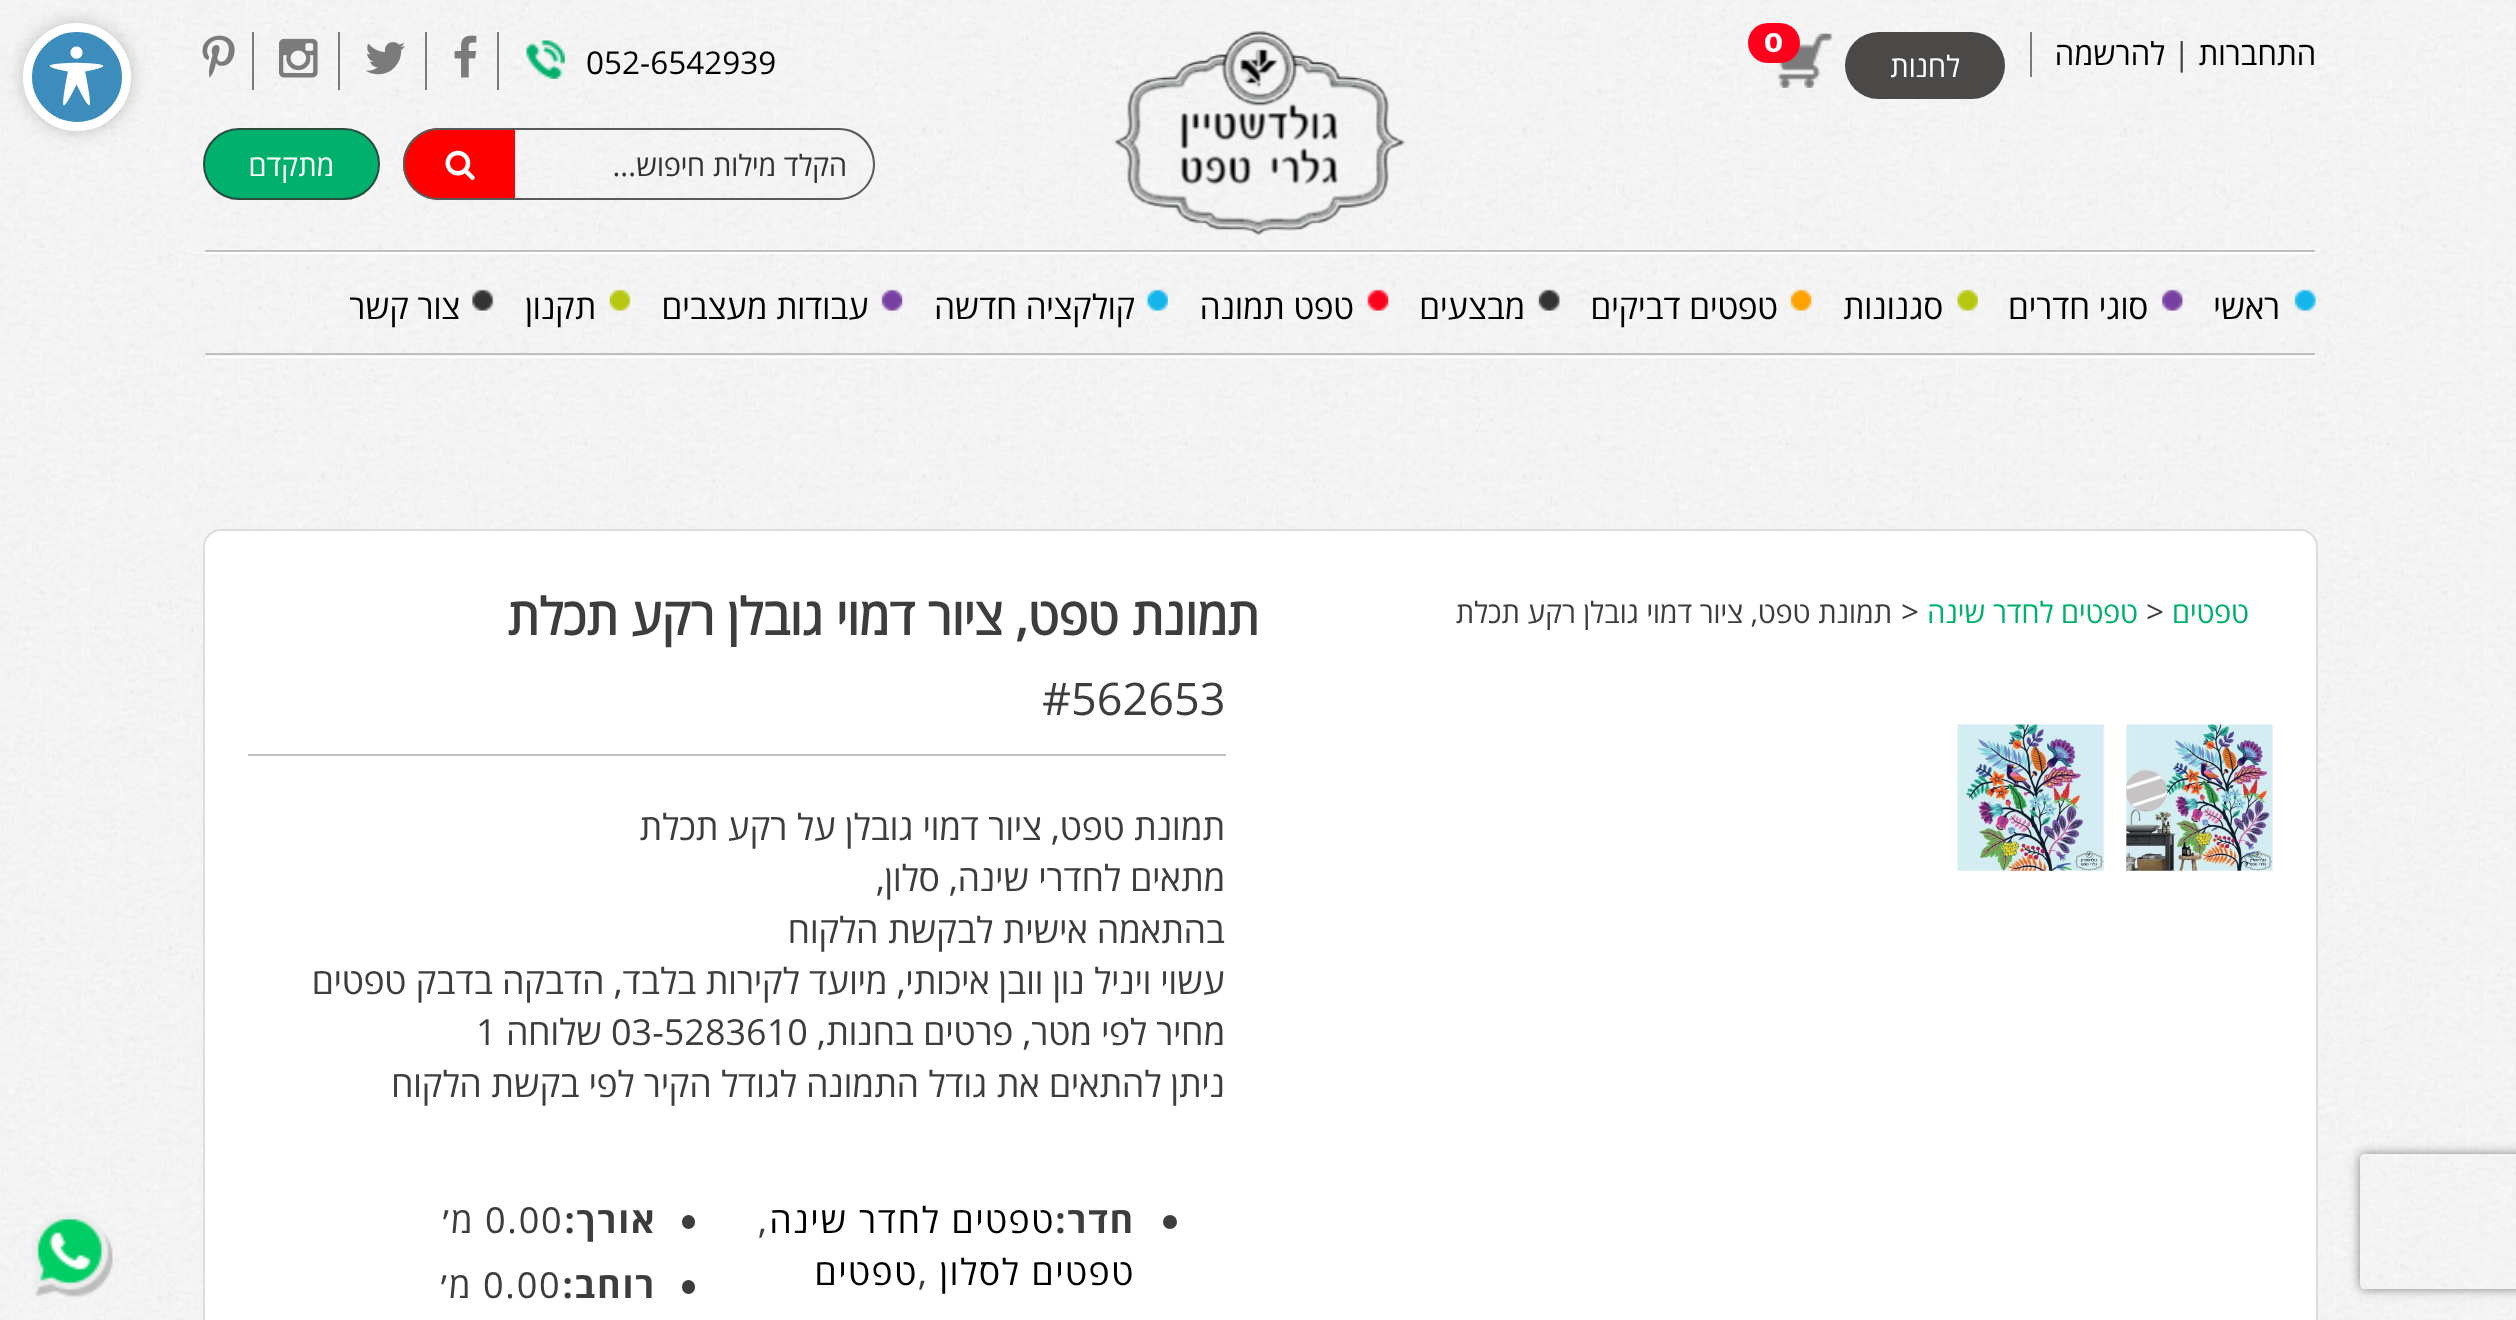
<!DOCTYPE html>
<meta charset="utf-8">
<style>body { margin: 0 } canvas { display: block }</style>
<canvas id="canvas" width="2516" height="1320"></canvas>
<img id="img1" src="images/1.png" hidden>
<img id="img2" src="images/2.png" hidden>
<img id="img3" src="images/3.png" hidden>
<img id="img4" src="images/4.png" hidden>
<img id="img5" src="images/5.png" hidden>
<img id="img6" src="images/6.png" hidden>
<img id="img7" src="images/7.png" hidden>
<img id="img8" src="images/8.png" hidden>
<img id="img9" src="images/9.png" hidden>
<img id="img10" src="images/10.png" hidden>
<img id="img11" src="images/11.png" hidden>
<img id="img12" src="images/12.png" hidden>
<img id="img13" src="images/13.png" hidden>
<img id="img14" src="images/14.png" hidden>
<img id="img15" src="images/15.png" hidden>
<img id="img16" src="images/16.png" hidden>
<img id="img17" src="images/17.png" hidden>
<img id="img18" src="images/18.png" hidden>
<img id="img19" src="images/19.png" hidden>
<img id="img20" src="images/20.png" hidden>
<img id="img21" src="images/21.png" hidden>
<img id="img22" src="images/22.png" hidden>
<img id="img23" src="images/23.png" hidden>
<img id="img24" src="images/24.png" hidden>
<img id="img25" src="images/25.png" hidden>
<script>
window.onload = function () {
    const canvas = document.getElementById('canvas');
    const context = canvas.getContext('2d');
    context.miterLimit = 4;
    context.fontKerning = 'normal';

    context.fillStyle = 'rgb(255, 255, 255)';
    context.fillRect(0, 0, 2516, 1320);
    context.drawImage(document.getElementById('img1'), 0, 371, 2516, 113);
    context.drawImage(document.getElementById('img2'), 0, 484, 2516, 836);
    context.drawImage(document.getElementById('img3'), 0, 0, 2516, 371);
    context.fillStyle = 'rgb(123, 123, 123)';
    context.fillRect(2030, 32, 2, 45);
    context.fillStyle = 'rgb(75, 72, 72)';
    context.beginPath();
    context.roundRect(1845, 32, 160, 67, 33.5);
    context.fill();
    context.drawImage(document.getElementById('img4'), 1777, 33, 56, 55);
    context.fillStyle = 'rgb(255, 0, 28)';
    context.beginPath();
    context.roundRect(1748, 23, 52, 40, 20);
    context.fill();
    context.drawImage(document.getElementById('img5'), 1114, 31, 292, 205);
    context.drawImage(document.getElementById('img6'), 526, 40, 39, 39);
    context.fillStyle = 'rgb(123, 123, 123)';
    context.fillRect(497, 32, 2, 58);
    context.drawImage(document.getElementById('img7'), 454, 35, 23, 43);
    context.fillRect(425, 32, 2, 58);
    context.drawImage(document.getElementById('img8'), 365, 42, 40, 33);
    context.fillRect(338, 32, 2, 58);
    context.drawImage(document.getElementById('img9'), 279, 38, 39, 40);
    context.fillRect(252, 32, 2, 58);
    context.drawImage(document.getElementById('img10'), 202, 35, 33, 43);
    context.fillStyle = 'rgb(89, 89, 89)';
    context.beginPath();
    context.moveTo(515, 128);
    context.lineTo(839, 128);
    context.bezierCurveTo(859, 128, 875, 144, 875, 164);
    context.bezierCurveTo(875, 184, 859, 200, 839, 200);
    context.lineTo(515, 200);
    context.closePath();
    context.moveTo(515, 130);
    context.lineTo(839, 130);
    context.bezierCurveTo(858, 130, 873, 146, 873, 164);
    context.bezierCurveTo(873, 183, 858, 198, 839, 198);
    context.lineTo(515, 198);
    context.closePath();
    context.fill('evenodd');
    context.fillStyle = 'rgb(255, 0, 0)';
    context.beginPath();
    context.roundRect(403, 128, 112, 72, [36, 0, 0, 36]);
    context.fill();
    context.fillStyle = 'rgb(89, 89, 89)';
    context.beginPath();
    context.moveTo(439, 128);
    context.lineTo(515, 128);
    context.lineTo(515, 200);
    context.lineTo(439, 200);
    context.bezierCurveTo(419, 200, 403, 184, 403, 164);
    context.bezierCurveTo(403, 144, 419, 128, 439, 128);
    context.closePath();
    context.moveTo(439, 130);
    context.lineTo(515, 130);
    context.lineTo(515, 198);
    context.lineTo(439, 198);
    context.bezierCurveTo(420, 198, 405, 183, 405, 164);
    context.bezierCurveTo(405, 146, 420, 130, 439, 130);
    context.closePath();
    context.fill('evenodd');
    context.drawImage(document.getElementById('img11'), 445, 150, 30, 30);
    context.fillStyle = 'rgb(0, 176, 108)';
    context.beginPath();
    context.roundRect(204, 129, 175, 70, 35);
    context.fill();
    context.strokeStyle = 'rgb(41, 76, 62)';
    context.lineWidth = 2;
    context.stroke();
    context.fillStyle = 'rgb(191, 191, 191)';
    context.fillRect(205, 250, 2110, 2);
    context.fillStyle = 'rgb(255, 255, 255)';
    context.fillRect(205, 252, 2110, 2);
    context.drawImage(document.getElementById('img12'), 2294, 289, 22, 22);
    context.drawImage(document.getElementById('img13'), 2162, 289, 21, 22);
    context.drawImage(document.getElementById('img14'), 1956, 289, 22, 22);
    context.drawImage(document.getElementById('img15'), 1790, 289, 22, 22);
    context.drawImage(document.getElementById('img16'), 1538, 289, 22, 22);
    context.drawImage(document.getElementById('img17'), 1367, 289, 22, 22);
    context.drawImage(document.getElementById('img18'), 1146, 289, 22, 22);
    context.drawImage(document.getElementById('img19'), 881, 289, 22, 22);
    context.drawImage(document.getElementById('img20'), 609, 289, 22, 22);
    context.drawImage(document.getElementById('img21'), 472, 289, 22, 22);
    context.fillStyle = 'rgb(191, 191, 191)';
    context.fillRect(205, 353, 2110, 2);
    context.fillStyle = 'rgb(255, 255, 255)';
    context.fillRect(205, 356, 2110, 2);
    context.fillStyle = 'rgba(36, 36, 36, 0.25)';
    context.filter = 'blur(9px)';
    context.beginPath();
    context.roundRect(23, 23, 108, 108, 54);
    context.fill();
    context.filter = 'none';
    context.fillStyle = 'rgb(60, 141, 188)';
    context.beginPath();
    context.arc(77, 77, 49.5, 0, 2 * Math.PI);
    context.fill();
    context.strokeStyle = 'rgb(255, 255, 255)';
    context.lineWidth = 9;
    context.stroke();
    context.drawImage(document.getElementById('img22'), 49, 46, 55, 60);
    context.save();
    context.beginPath();
    context.moveTo(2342, 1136);
    context.lineTo(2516, 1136);
    context.lineTo(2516, 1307);
    context.lineTo(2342, 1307);
    context.closePath();
    context.moveTo(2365, 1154);
    context.lineTo(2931, 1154);
    context.bezierCurveTo(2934, 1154, 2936, 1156, 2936, 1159);
    context.lineTo(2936, 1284);
    context.bezierCurveTo(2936, 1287, 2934, 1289, 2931, 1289);
    context.lineTo(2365, 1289);
    context.bezierCurveTo(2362, 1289, 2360, 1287, 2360, 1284);
    context.lineTo(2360, 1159);
    context.bezierCurveTo(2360, 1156, 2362, 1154, 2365, 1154);
    context.closePath();
    context.clip('evenodd');
    context.fillStyle = 'rgb(128, 128, 128)';
    context.filter = 'blur(5.5px)';
    context.beginPath();
    context.roundRect(2360, 1154, 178, 135, 5);
    context.fill();
    context.filter = 'none';
    context.restore();
    context.fillStyle = 'rgb(255, 255, 255)';
    context.beginPath();
    context.roundRect(204, 530, 2113, 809, 17);
    context.fill();
    context.strokeStyle = 'rgb(221, 221, 221)';
    context.lineWidth = 2;
    context.stroke();
    context.drawImage(document.getElementById('img23'), 2126, 724, 147, 147);
    context.drawImage(document.getElementById('img24'), 1957, 724, 147, 147);
    context.fillStyle = 'rgb(191, 191, 191)';
    context.fillRect(248, 754, 978, 2);
    context.fillStyle = 'rgb(61, 61, 61)';
    context.beginPath();
    context.arc(1170, 1222, 7, 0, 2 * Math.PI);
    context.fill();
    context.beginPath();
    context.roundRect(682, 1215, 13, 14, 6.5);
    context.fill();
    context.beginPath();
    context.roundRect(682, 1280, 13, 14, 6.5);
    context.fill();
    context.drawImage(document.getElementById('img25'), 31, 1213, 82, 84);
    context.direction = 'rtl';
    context.font = '31.5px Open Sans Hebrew';
    context.fillStyle = 'rgb(0, 0, 0)';
    context.fillText('התחברות', 2316, 65);
    context.direction = 'ltr';
    context.fillStyle = 'rgb(61, 61, 61)';
    context.fillText('|', 2173, 65);
    context.direction = 'rtl';
    context.fillStyle = 'rgb(0, 0, 0)';
    context.fillText('להרשמה', 2165, 65);
    context.font = '29.25px Open Sans Hebrew';
    context.fillStyle = 'rgb(255, 255, 255)';
    context.fillText('לחנות', 1960, 77);
    context.direction = 'ltr';
    context.font = 'bold 27px Montserrat';
    context.fillText('0', 1764, 52);
    context.font = '31.5px Open Sans Hebrew';
    context.fillStyle = 'rgb(0, 0, 0)';
    context.fillText('052-6542939', 586, 74);
    context.direction = 'rtl';
    context.font = '29.25px Open Sans Hebrew';
    context.fillStyle = 'rgb(50, 49, 49)';
    context.fillText('הקלד מילות חיפוש...', 847, 176);
    context.fillStyle = 'rgb(255, 255, 255)';
    context.fillText('מתקדם', 334, 176);
    context.font = '33.75px Open Sans Hebrew';
    context.fillStyle = 'rgb(0, 0, 0)';
    context.fillText('ראשי', 2280, 319);
    context.fillText('סוגי חדרים', 2148, 319);
    context.fillText('סגנונות', 1943, 319);
    context.fillText('טפטים דביקים', 1778, 319);
    context.fillText('מבצעים', 1525, 319);
    context.fillText('טפט תמונה', 1354, 319);
    context.fillText('קולקציה חדשה', 1135, 319);
    context.fillText('עבודות מעצבים', 869, 319);
    context.fillText('תקנון', 596, 319);
    context.fillText('צור קשר', 460, 319);
    context.font = '29.25px Open Sans Hebrew';
    context.fillStyle = 'rgb(0, 176, 107)';
    context.fillText('טפטים', 2249, 623);
    context.direction = 'ltr';
    context.font = '31.5px Open Sans Hebrew';
    context.fillStyle = 'rgb(61, 61, 61)';
    context.fillText('>', 2146, 623);
    context.direction = 'rtl';
    context.font = '29.25px Open Sans Hebrew';
    context.fillStyle = 'rgb(0, 176, 107)';
    context.fillText('טפטים לחדר שינה', 2138, 623);
    context.direction = 'ltr';
    context.font = '31.5px Open Sans Hebrew';
    context.fillStyle = 'rgb(61, 61, 61)';
    context.fillText('>', 1901, 623);
    context.direction = 'rtl';
    context.font = '29.25px Open Sans Hebrew';
    context.fillText('תמונת טפט, ציור דמוי גובלן רקע תכלת', 1892, 623);
    context.font = 'bold 50.4px "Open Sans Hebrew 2"';
    context.fillText('תמונת טפט, ציור דמוי גובלן רקע תכלת', 1259, 635);
    context.direction = 'ltr';
    context.font = '45px Open Sans Hebrew';
    context.fillText('#562653', 1042, 715);
    context.direction = 'rtl';
    context.font = '36px Open Sans Hebrew';
    context.fillText('תמונת טפט, ציור דמוי גובלן על רקע תכלת', 1225, 840);
    context.fillText('מתאים לחדרי שינה, סלון,', 1225, 891);
    context.fillText('בהתאמה אישית לבקשת הלקוח', 1225, 943);
    context.fillText('עשוי ויניל נון וובן איכותי, מיועד לקירות בלבד, הדבקה בדבק טפטים', 1225, 994);
    context.fillText('מחיר לפי מטר, פרטים בחנות,', 1225, 1045);
    context.direction = 'ltr';
    context.fillText('03-5283610', 611, 1045);
    context.direction = 'rtl';
    context.fillText('שלוחה', 602, 1045);
    context.direction = 'ltr';
    context.fillText('1', 476, 1045);
    context.direction = 'rtl';
    context.fillText('ניתן להתאים את גודל התמונה לגודל הקיר לפי בקשת הלקוח', 1225, 1097);
    context.letterSpacing = '1.75px';
    context.font = 'bold 36px Open Sans Hebrew';
    context.fillText('חדר:', 1135, 1233);
    context.font = '36px Open Sans Hebrew';
    context.fillStyle = 'rgb(0, 0, 0)';
    context.fillText('טפטים לחדר שינה', 1055, 1233);
    context.direction = 'ltr';
    context.fillStyle = 'rgb(61, 61, 61)';
    context.fillText(',', 758, 1233);
    context.direction = 'rtl';
    context.fillStyle = 'rgb(0, 0, 0)';
    context.fillText('טפטים לסלון', 1135, 1285);
    context.direction = 'ltr';
    context.fillStyle = 'rgb(61, 61, 61)';
    context.fillText(',', 918, 1285);
    context.direction = 'rtl';
    context.fillStyle = 'rgb(0, 0, 0)';
    context.fillText('טפטים', 918, 1285);
    context.font = 'bold 36px Open Sans Hebrew';
    context.fillStyle = 'rgb(61, 61, 61)';
    context.fillText('אורך:', 656, 1233);
    context.direction = 'ltr';
    context.font = '36px Open Sans Hebrew';
    context.fillText('0.00', 485, 1233);
    context.direction = 'rtl';
    context.fillText('מ׳', 474, 1233);
    context.font = 'bold 36px Open Sans Hebrew';
    context.fillText('רוחב:', 656, 1298);
    context.direction = 'ltr';
    context.font = '36px Open Sans Hebrew';
    context.fillText('0.00', 483, 1298);
    context.direction = 'rtl';
    context.fillText('מ׳', 472, 1298);
};
</script>
